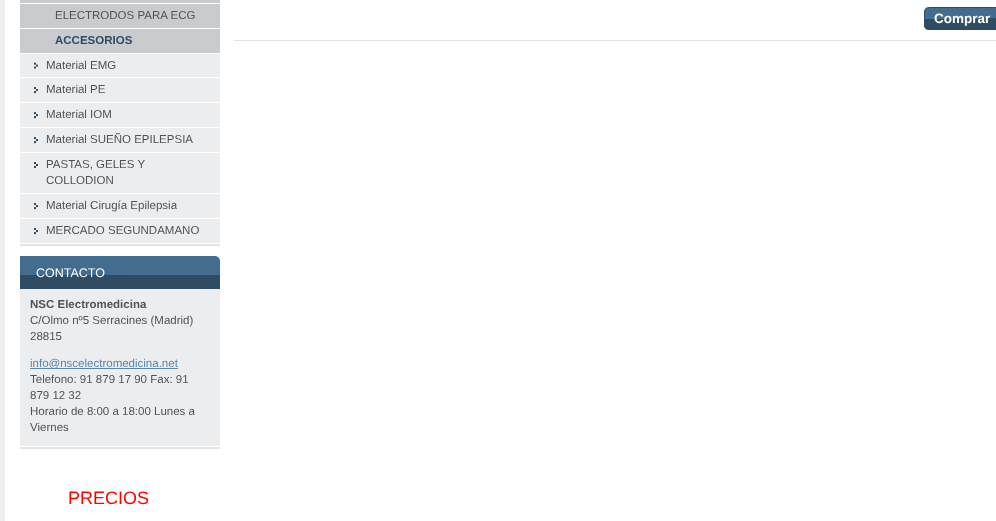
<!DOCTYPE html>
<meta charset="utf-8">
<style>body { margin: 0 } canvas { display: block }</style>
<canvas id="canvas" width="996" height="521"></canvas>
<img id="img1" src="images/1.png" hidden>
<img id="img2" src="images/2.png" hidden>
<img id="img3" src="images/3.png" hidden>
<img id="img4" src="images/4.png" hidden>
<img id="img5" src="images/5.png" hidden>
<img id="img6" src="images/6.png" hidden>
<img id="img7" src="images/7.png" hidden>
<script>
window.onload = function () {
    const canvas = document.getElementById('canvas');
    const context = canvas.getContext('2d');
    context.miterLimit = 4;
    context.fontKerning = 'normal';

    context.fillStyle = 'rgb(255, 255, 255)';
    context.fillRect(0, 0, 996, 521);
    context.fillStyle = 'rgb(239, 239, 239)';
    context.fillRect(0, 0, 5, 521);
    context.fillStyle = 'rgb(226, 229, 232)';
    context.fillRect(20, 244, 200, 2);
    context.fillStyle = 'rgb(235, 237, 239)';
    context.fillRect(20, 54, 200, 189);
    context.fillStyle = 'rgb(201, 204, 207)';
    context.fillRect(20, 0, 200, 53);
    context.fillStyle = 'rgb(255, 255, 255)';
    context.fillRect(20, 3, 200, 1);
    context.fillRect(20, 28, 200, 1);
    context.drawImage(document.getElementById('img1'), 34, 62, 4, 7);
    context.fillRect(20, 77, 200, 1);
    context.drawImage(document.getElementById('img2'), 34, 87, 4, 7);
    context.fillRect(20, 102, 200, 1);
    context.drawImage(document.getElementById('img2'), 34, 112, 4, 7);
    context.fillRect(20, 127, 200, 1);
    context.drawImage(document.getElementById('img2'), 34, 137, 4, 7);
    context.fillRect(20, 152, 200, 1);
    context.drawImage(document.getElementById('img3'), 34, 162, 4, 6);
    context.fillRect(20, 193, 200, 1);
    context.drawImage(document.getElementById('img2'), 34, 203, 4, 7);
    context.fillRect(20, 218, 200, 1);
    context.drawImage(document.getElementById('img2'), 34, 228, 4, 7);
    context.fillStyle = 'rgb(226, 229, 232)';
    context.fillRect(20, 447, 200, 2);
    context.fillStyle = 'rgb(235, 237, 239)';
    context.fillRect(20, 289, 200, 157);
    context.fillStyle = 'rgb(47, 76, 99)';
    context.fillRect(20, 276, 200, 13);
    context.drawImage(document.getElementById('img4'), 20, 256, 200, 20);
    context.fillStyle = 'rgb(85, 135, 175)';
    context.fillRect(30, 368, 148, 1);
    context.fillStyle = 'rgb(226, 229, 232)';
    context.fillRect(234, 40, 762, 1);
    context.drawImage(document.getElementById('img5'), 924, 7, 72, 12);
    context.drawImage(document.getElementById('img6'), 995, 7, 1, 2);
    context.drawImage(document.getElementById('img7'), 924, 19, 72, 11);
    context.fillStyle = 'rgb(47, 76, 99)';
    context.fillRect(980, 18, 16, 1);
    context.font = '11.5px Liberation Sans';
    context.fillStyle = 'rgb(83, 83, 83)';
    context.fillText('ELECTRODOS PARA ECG', 55, 19);
    context.font = 'bold 11.5px Liberation Sans';
    context.fillStyle = 'rgb(47, 76, 99)';
    context.fillText('ACCESORIOS', 55, 44);
    context.font = '11.5px Liberation Sans';
    context.fillStyle = 'rgb(83, 83, 83)';
    context.fillText('Material EMG', 46, 69);
    context.fillText('Material PE', 46, 93);
    context.fillText('Material IOM', 46, 118);
    context.fillText('Material SUEÑO EPILEPSIA', 46, 143);
    context.fillText('PASTAS, GELES Y', 46, 168);
    context.fillText('COLLODION', 46, 184);
    context.fillText('Material Cirugía Epilepsia', 46, 209);
    context.fillText('MERCADO SEGUNDAMANO', 46, 234);
    context.font = '12.5px Liberation Sans';
    context.fillStyle = 'rgb(255, 255, 255)';
    context.fillText('CONTACTO', 36, 277);
    context.font = 'bold 11.5px Liberation Sans';
    context.fillStyle = 'rgb(83, 83, 83)';
    context.fillText('NSC Electromedicina', 30, 308);
    context.font = '11.5px Liberation Sans';
    context.fillText('C/Olmo nº5 Serracines (Madrid)', 30, 324);
    context.fillText('28815', 30, 340);
    context.fillStyle = 'rgb(85, 135, 175)';
    context.fillText('info@nscelectromedicina.net', 30, 367);
    context.fillStyle = 'rgb(83, 83, 83)';
    context.fillText('Telefono: 91 879 17 90 Fax: 91', 30, 383);
    context.fillText('879 12 32', 30, 399);
    context.fillText('Horario de 8:00 a 18:00 Lunes a', 30, 415);
    context.fillText('Viernes', 30, 431);
    context.font = '18px Liberation Sans';
    context.fillStyle = 'rgb(255, 0, 0)';
    context.fillText('PRECIOS', 68, 504);
    context.font = 'bold 13.5px Liberation Sans';
    context.fillStyle = 'rgb(255, 255, 255)';
    context.fillText('Comprar', 934, 23);
};
</script>
